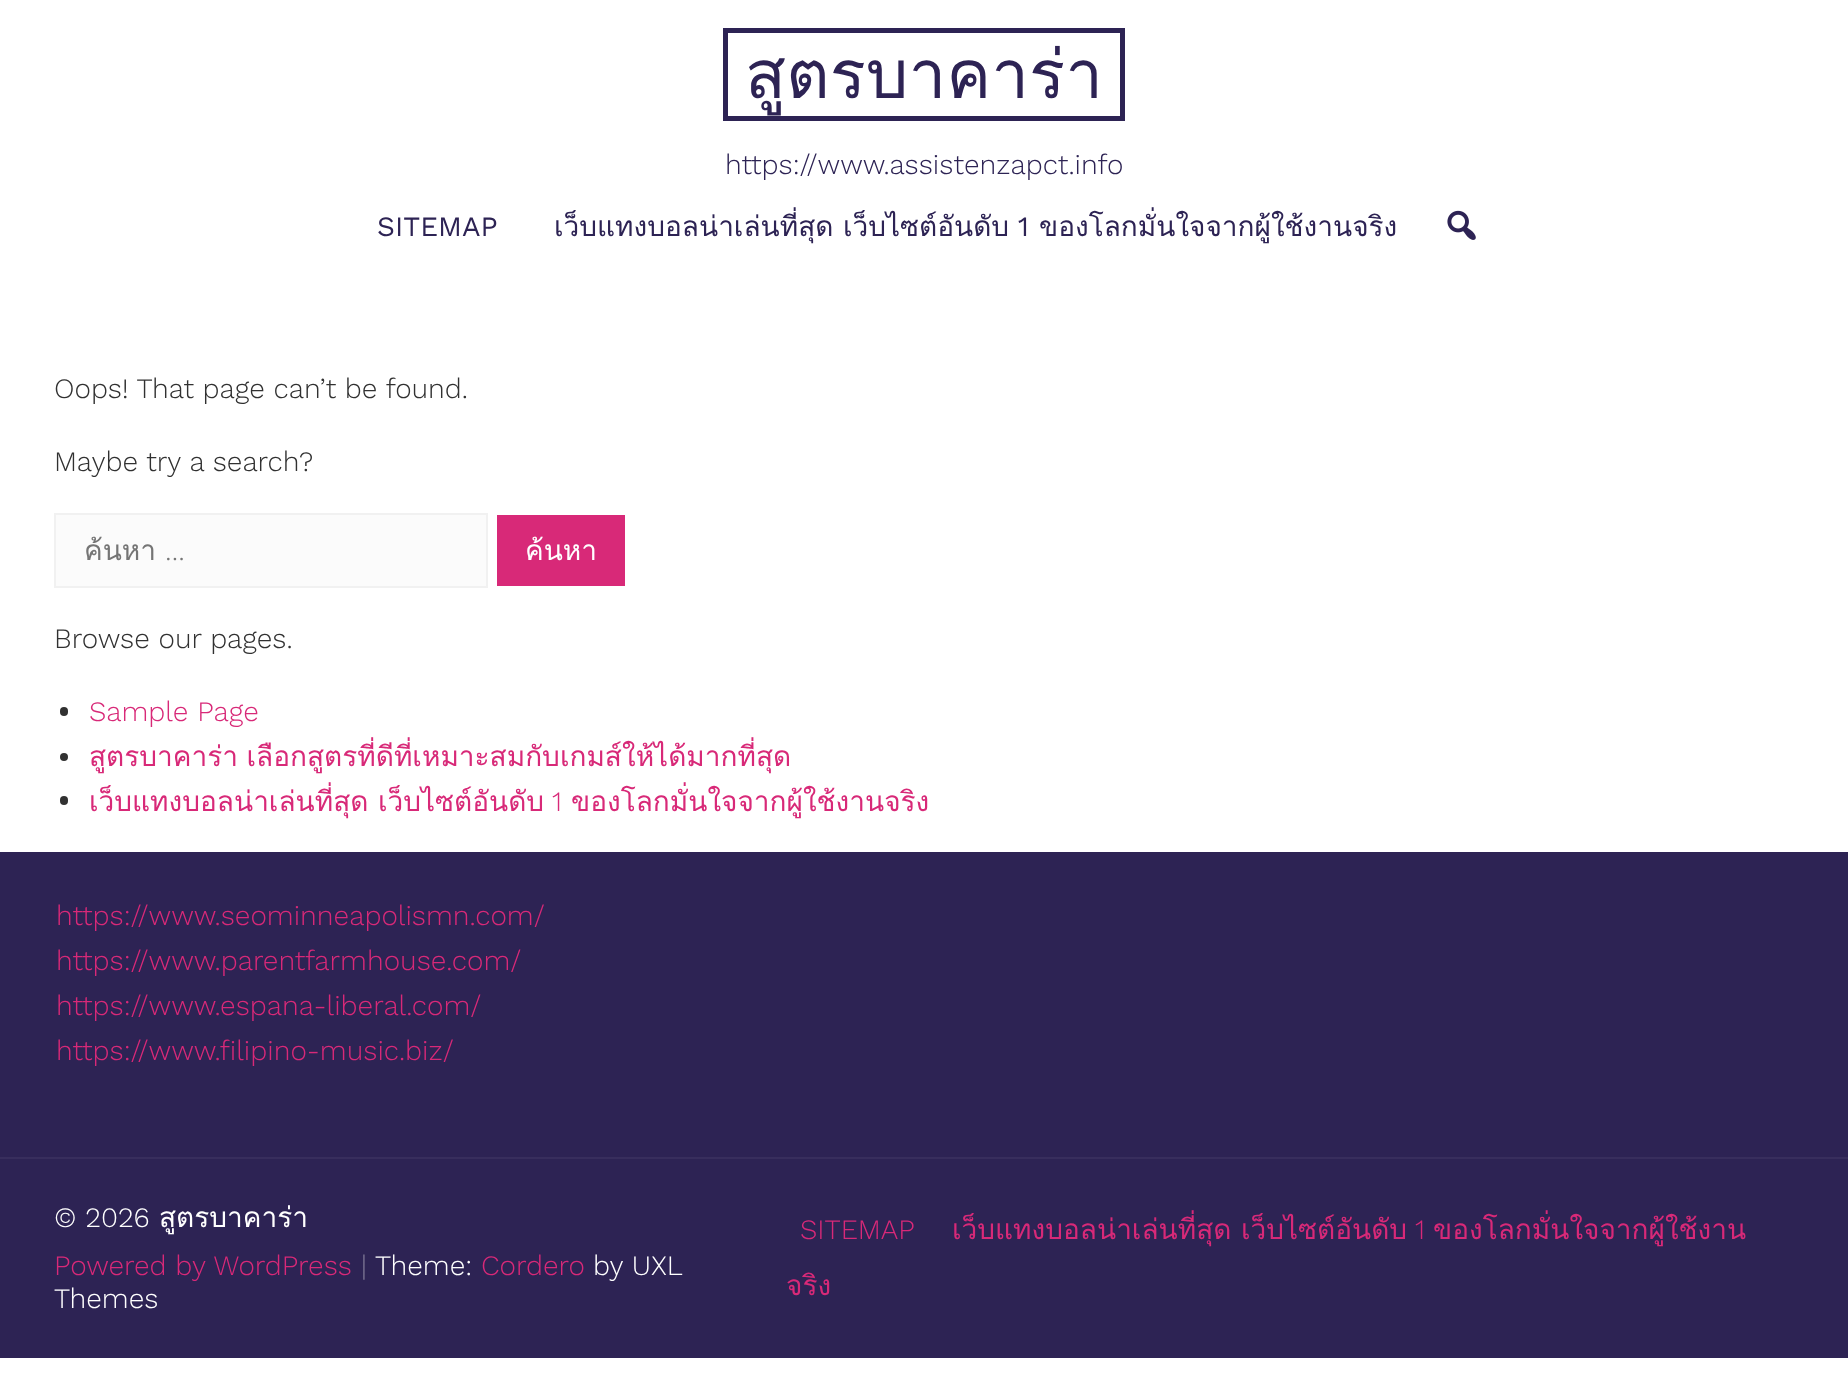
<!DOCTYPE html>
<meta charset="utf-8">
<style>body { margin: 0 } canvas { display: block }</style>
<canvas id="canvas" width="1848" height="1386"></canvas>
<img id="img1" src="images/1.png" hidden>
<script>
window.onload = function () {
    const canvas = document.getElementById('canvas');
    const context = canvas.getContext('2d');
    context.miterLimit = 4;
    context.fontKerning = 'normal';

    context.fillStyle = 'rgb(255, 255, 255)';
    context.fillRect(0, 0, 1848, 1386);
    context.strokeStyle = 'rgb(45, 35, 84)';
    context.lineWidth = 5;
    context.strokeRect(725.5, 30.5, 397, 88);
    context.drawImage(document.getElementById('img1'), 1447, 210, 29, 30);
    context.fillStyle = 'rgb(251, 251, 251)';
    context.beginPath();
    context.rect(55, 514, 432, 73);
    context.fill();
    context.strokeStyle = 'rgb(241, 241, 241)';
    context.lineWidth = 2;
    context.stroke();
    context.fillStyle = 'rgb(216, 41, 120)';
    context.fillRect(497, 515, 128, 71);
    context.fillStyle = 'rgb(49, 49, 49)';
    context.beginPath();
    context.roundRect(60, 707, 8, 9, 4);
    context.fill();
    context.beginPath();
    context.arc(64, 757, 4, 0, 2 * Math.PI);
    context.fill();
    context.beginPath();
    context.roundRect(60, 796, 8, 9, 4);
    context.fill();
    context.fillStyle = 'rgb(45, 35, 84)';
    context.fillRect(0, 852, 1848, 506);
    context.fillStyle = 'rgb(56, 46, 93)';
    context.fillRect(0, 1157, 1848, 2);
    context.font = '67.25px Loma';
    context.fillStyle = 'rgb(45, 35, 84)';
    context.fillText('สูตรบาคาร่า', 745, 98);
    context.font = '300 28px Work Sans';
    context.fillText('https://www.assistenzapct.info', 725, 174);
    context.font = '28px Work Sans';
    context.fillText('SITEMAP', 377, 236);
    context.font = '28px Loma';
    context.fillText('เว็บแทงบอลน่าเล่นที่สุด เว็บไซต์อันดับ', 554, 236);
    context.font = '28px Work Sans';
    context.fillText('1', 1018, 236);
    context.font = '28px Loma';
    context.fillText('ของโลกมั่นใจจากผู้ใช้งานจริง', 1039, 236);
    context.font = '300 28px Work Sans';
    context.fillStyle = 'rgb(49, 49, 49)';
    context.fillText('Oops! That page can’t be found.', 54, 398);
    context.fillText('Maybe try a search?', 54, 471);
    context.save();
    context.beginPath();
    context.rect(84, 529, 368, 43);
    context.clip();
    context.font = '28px Loma';
    context.fillStyle = 'rgb(117, 117, 117)';
    context.fillText('ค้นหา', 84, 560);
    context.restore();
    context.fillStyle = 'rgb(117, 117, 117)';
    context.fillText('…', 165, 560);
    context.font = '28px Loma';
    context.fillStyle = 'rgb(255, 255, 255)';
    context.fillText('ค้นหา', 525, 560);
    context.font = '300 28px Work Sans';
    context.fillStyle = 'rgb(49, 49, 49)';
    context.fillText('Browse our pages.', 54, 648);
    context.fillStyle = 'rgb(216, 41, 120)';
    context.fillText('Sample Page', 89, 721);
    context.wordSpacing = '-1px';
    context.font = '28px Loma';
    context.fillText('สูตรบาคาร่า เลือกสูตรที่ดีที่เหมาะสมกับเกมส์ให้ได้มากที่สุด', 89, 766);
    context.wordSpacing = '0px';
    context.fillText('เว็บแทงบอลน่าเล่นที่สุด เว็บไซต์อันดับ', 89, 811);
    context.font = '300 28px Work Sans';
    context.fillText('1', 552, 811);
    context.font = '28px Loma';
    context.fillText('ของโลกมั่นใจจากผู้ใช้งานจริง', 571, 811);
    context.font = '300 28px Work Sans';
    context.fillText('https://www.seominneapolismn.com/', 56, 925);
    context.fillText('https://www.parentfarmhouse.com/', 56, 970);
    context.fillText('https://www.espana-liberal.com/', 56, 1015);
    context.fillText('https://www.filipino-music.biz/', 56, 1060);
    context.fillStyle = 'rgb(255, 255, 255)';
    context.fillText('© 2026', 54, 1227);
    context.font = '28px Loma';
    context.fillText('สูตรบาคาร่า', 159, 1227);
    context.font = '300 28px Work Sans';
    context.fillStyle = 'rgb(216, 41, 120)';
    context.fillText('Powered by WordPress', 54, 1275);
    context.fillStyle = 'rgb(129, 123, 152)';
    context.fillText('|', 361, 1275);
    context.fillStyle = 'rgb(255, 255, 255)';
    context.fillText('Theme:', 375, 1275);
    context.fillStyle = 'rgb(216, 41, 120)';
    context.fillText('Cordero', 481, 1275);
    context.fillStyle = 'rgb(255, 255, 255)';
    context.fillText('by UXL', 593, 1275);
    context.fillText('Themes', 54, 1308);
    context.fillStyle = 'rgb(216, 41, 120)';
    context.fillText('SITEMAP', 800, 1239);
    context.font = '28px Loma';
    context.fillText('เว็บแทงบอลน่าเล่นที่สุด เว็บไซต์อันดับ', 952, 1239);
    context.font = '300 28px Work Sans';
    context.fillText('1', 1415, 1239);
    context.font = '28px Loma';
    context.fillText('ของโลกมั่นใจจากผู้ใช้งาน', 1433, 1239);
    context.fillText('จริง', 786, 1295);
};
</script>
